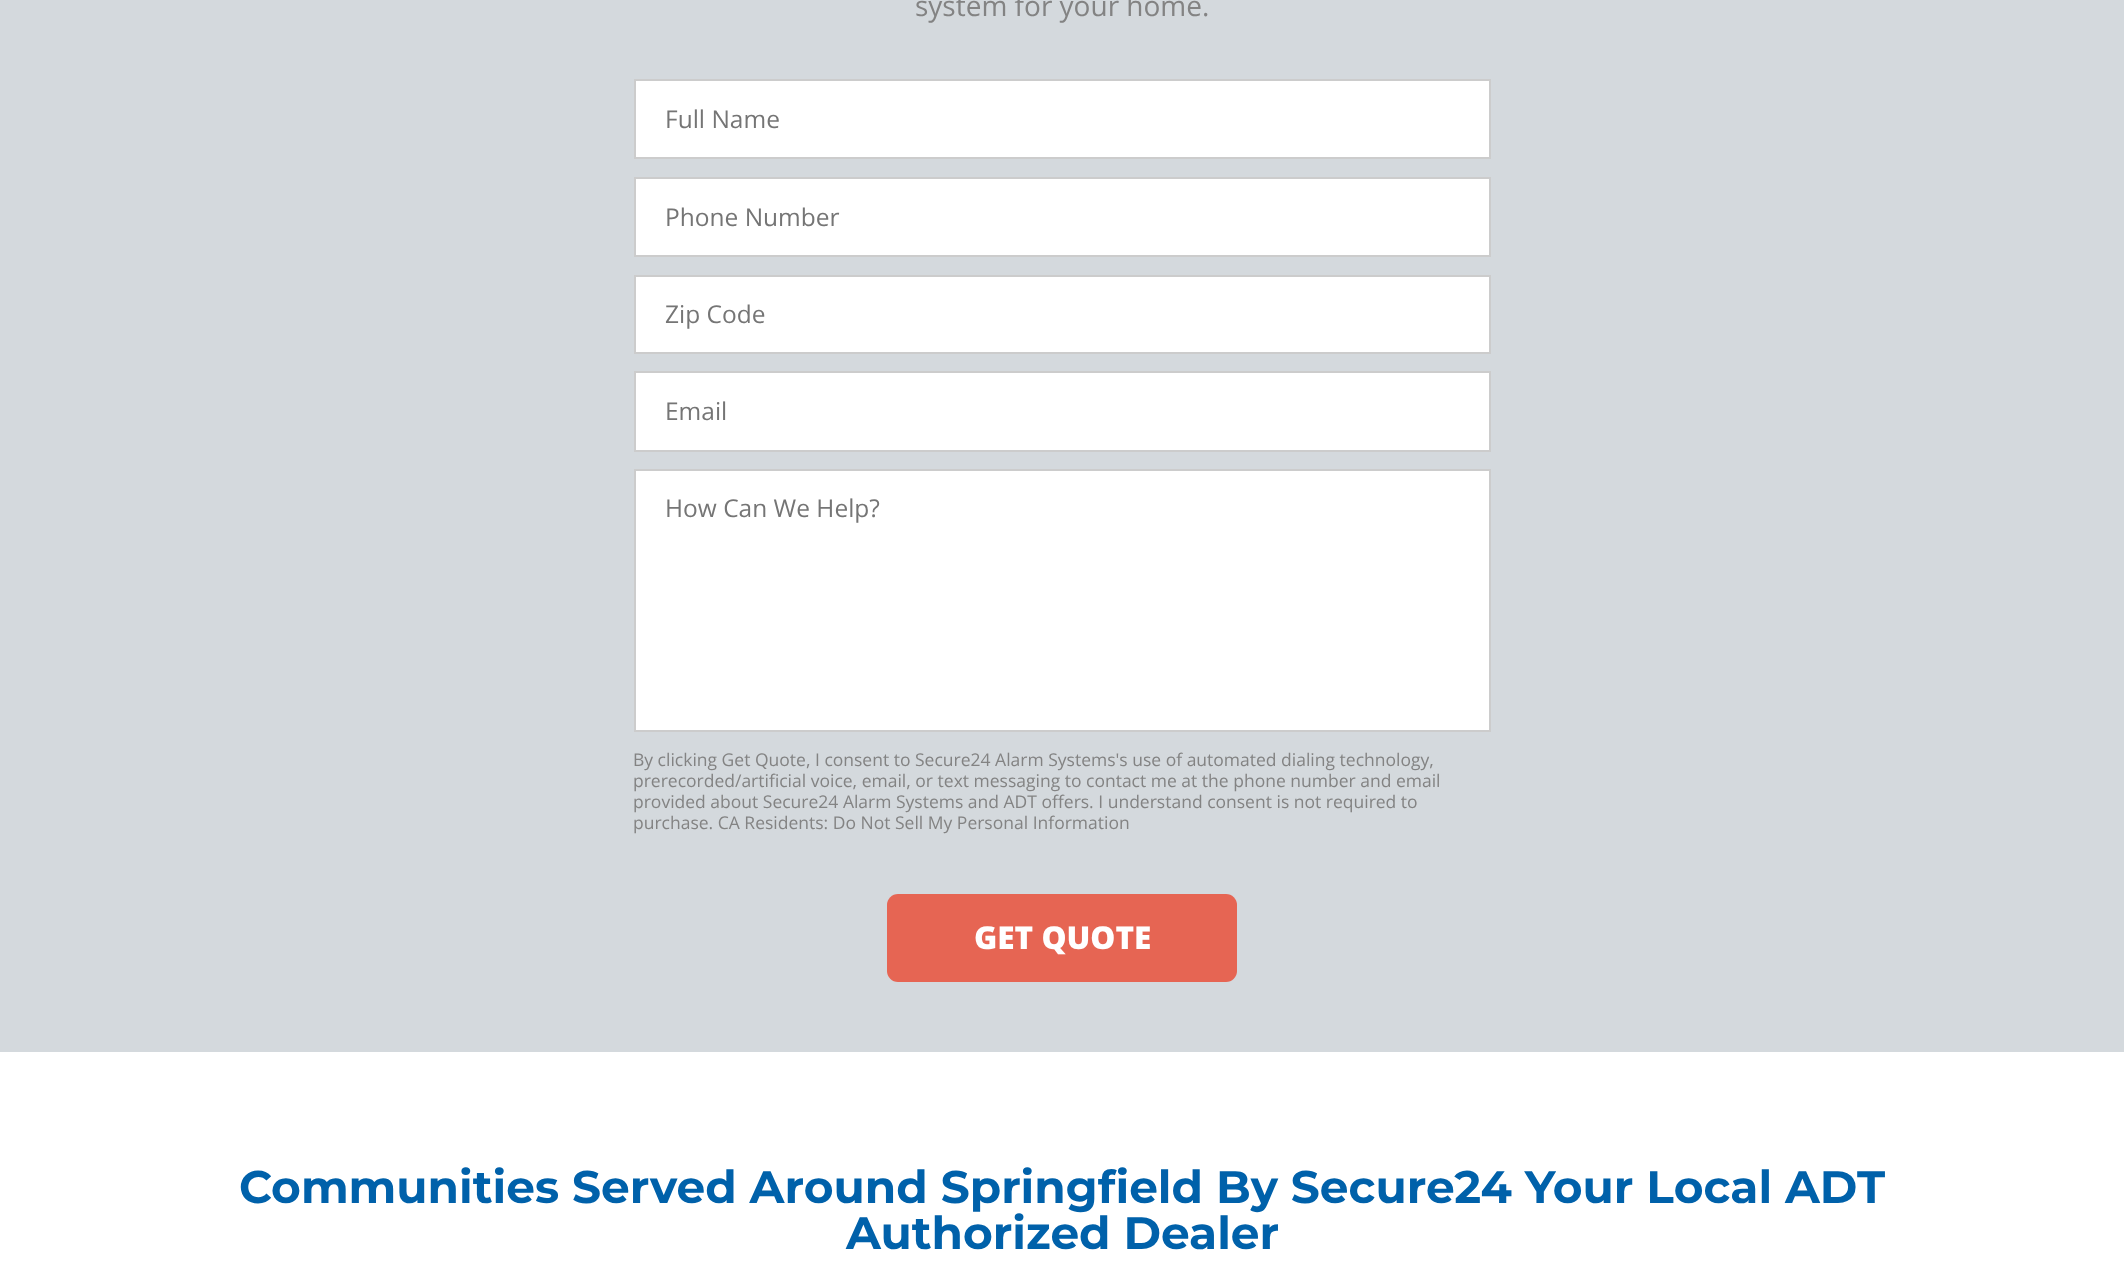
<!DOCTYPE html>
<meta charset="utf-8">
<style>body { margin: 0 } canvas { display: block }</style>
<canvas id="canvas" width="2124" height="1276"></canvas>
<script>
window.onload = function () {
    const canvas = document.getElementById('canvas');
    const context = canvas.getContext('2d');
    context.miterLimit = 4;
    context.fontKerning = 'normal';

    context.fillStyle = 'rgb(255, 255, 255)';
    context.fillRect(0, 0, 2124, 1276);
    context.fillStyle = 'rgb(212, 217, 221)';
    context.fillRect(0, 0, 2124, 1052);
    context.fillStyle = 'rgb(255, 255, 255)';
    context.beginPath();
    context.rect(635, 80, 855, 78);
    context.fill();
    context.strokeStyle = 'rgb(204, 204, 204)';
    context.lineWidth = 2;
    context.stroke();
    context.beginPath();
    context.rect(635, 178, 855, 78);
    context.fill();
    context.stroke();
    context.beginPath();
    context.rect(635, 276, 855, 77);
    context.fill();
    context.stroke();
    context.beginPath();
    context.rect(635, 372, 855, 79);
    context.fill();
    context.stroke();
    context.beginPath();
    context.rect(635, 470, 855, 261);
    context.fill();
    context.stroke();
    context.fillStyle = 'rgb(230, 101, 83)';
    context.beginPath();
    context.roundRect(887, 894, 350, 88, 11);
    context.fill();
    context.font = '28px Open Sans';
    context.fillStyle = 'rgb(131, 131, 131)';
    context.fillText('system for your home.', 915, 16);
    context.font = '24.5px Open Sans';
    context.fillStyle = 'rgb(117, 117, 117)';
    context.fillText('Full Name', 665, 128);
    context.fillText('Phone Number', 665, 226);
    context.fillText('Zip Code', 665, 323);
    context.fillText('Email', 665, 420);
    context.fillText('How Can We Help?', 665, 517);
    context.font = '17.5px Open Sans';
    context.fillStyle = 'rgb(131, 131, 131)';
    context.fillText('By clicking Get Quote, I consent to Secure24 Alarm Systems\'s use of automated dialing technology,', 633, 766);
    context.fillText('prerecorded/artificial voice, email, or text messaging to contact me at the phone number and email', 633, 787);
    context.fillText('provided about Secure24 Alarm Systems and ADT offers. I understand consent is not required to', 633, 808);
    context.fillText('purchase. CA Residents: Do Not Sell My Personal Information', 633, 829);
    context.font = '800 31.5px Open Sans';
    context.fillStyle = 'rgb(255, 255, 255)';
    context.fillText('GET QUOTE', 974, 949);
    context.font = 'bold 45.5px Montserrat';
    context.fillStyle = 'rgb(0, 97, 170)';
    context.fillText('Communities Served Around Springfield By Secure24 Your Local ADT', 239, 1203);
    context.fillText('Authorized Dealer', 846, 1249);
};
</script>
